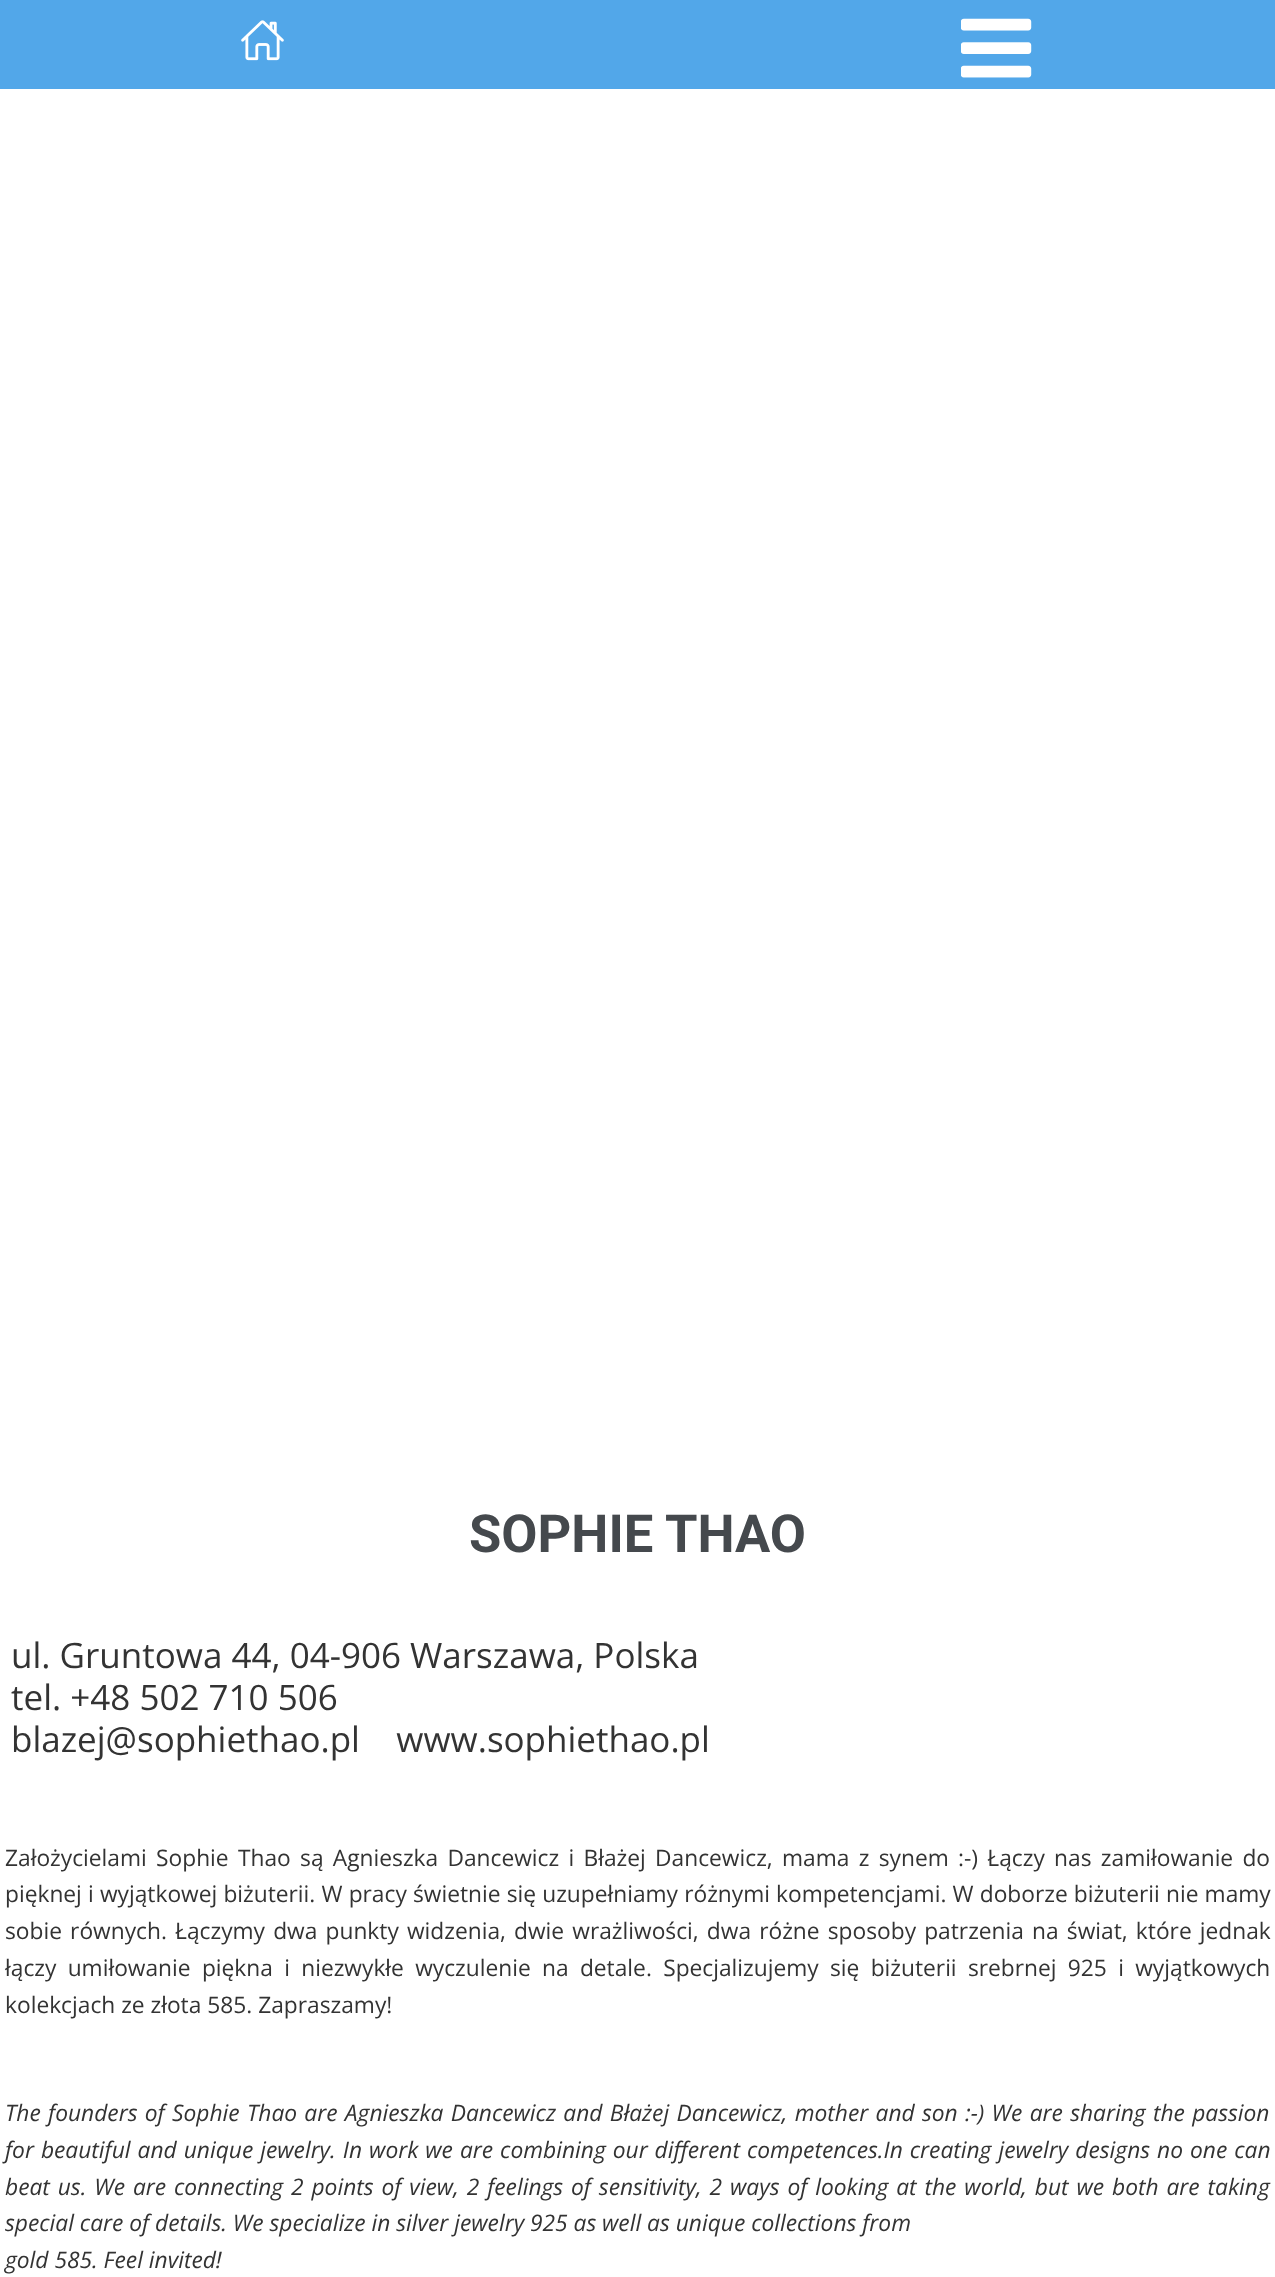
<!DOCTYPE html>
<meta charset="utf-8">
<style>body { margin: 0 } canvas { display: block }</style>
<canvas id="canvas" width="1275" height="2277"></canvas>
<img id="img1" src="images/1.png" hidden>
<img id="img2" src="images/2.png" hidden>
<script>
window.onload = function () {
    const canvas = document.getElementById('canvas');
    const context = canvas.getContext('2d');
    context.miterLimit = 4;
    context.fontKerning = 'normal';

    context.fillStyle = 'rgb(255, 255, 255)';
    context.fillRect(0, 0, 1275, 2277);
    context.fillStyle = 'rgb(82, 167, 233)';
    context.fillRect(0, 0, 1275, 89);
    context.drawImage(document.getElementById('img1'), 241, 20, 43, 41);
    context.drawImage(document.getElementById('img2'), 961, 18, 71, 60);
    context.font = 'bold 52.5px Roboto';
    context.fillStyle = 'rgb(69, 73, 77)';
    context.fillText('SOPHIE THAO', 469, 1552);
    context.font = '35px Open Sans';
    context.fillStyle = 'rgb(51, 51, 51)';
    context.fillText('ul. Gruntowa 44, 04-906 Warszawa, Polska', 11, 1668);
    context.fillText('tel. +48 502 710 506', 11, 1710);
    context.fillText('blazej@sophiethao.pl    www.sophiethao.pl', 11, 1752);
    context.wordSpacing = '3.4px';
    context.font = '22.75px Open Sans';
    context.fillText('Założycielami Sophie Thao są Agnieszka Dancewicz i Błażej Dancewicz, mama z synem :-) Łączy nas zamiłowanie do', 5, 1866);
    context.wordSpacing = '0.25px';
    context.fillText('pięknej i wyjątkowej biżuterii. W pracy świetnie się uzupełniamy różnymi kompetencjami. W doborze biżuterii nie mamy', 5, 1902);
    context.wordSpacing = '2.25px';
    context.fillText('sobie równych. Łączymy dwa punkty widzenia, dwie wrażliwości, dwa różne sposoby patrzenia na świat, które jednak', 5, 1939);
    context.wordSpacing = '5.4px';
    context.fillText('łączy umiłowanie piękna i niezwykłe wyczulenie na detale. Specjalizujemy się biżuterii srebrnej 925 i wyjątkowych', 5, 1976);
    context.wordSpacing = '0px';
    context.fillText('kolekcjach ze złota 585. Zapraszamy!', 5, 2013);
    context.wordSpacing = '1.4px';
    context.font = 'italic 22.75px Open Sans';
    context.fillText('The founders of Sophie Thao are Agnieszka Dancewicz and Błażej Dancewicz, mother and son :-) We are sharing the passion', 5, 2121);
    context.wordSpacing = '1.1px';
    context.fillText('for beautiful and unique jewelry. In work we are combining our different competences.In creating jewelry designs no one can', 5, 2158);
    context.wordSpacing = '2px';
    context.fillText('beat us. We are connecting 2 points of view, 2 feelings of sensitivity, 2 ways of looking at the world, but we both are taking', 5, 2195);
    context.wordSpacing = '0px';
    context.fillText('special care of details. We specialize in silver jewelry 925 as well as unique collections from', 5, 2231);
    context.fillText('gold 585. Feel invited!', 5, 2268);
};
</script>
